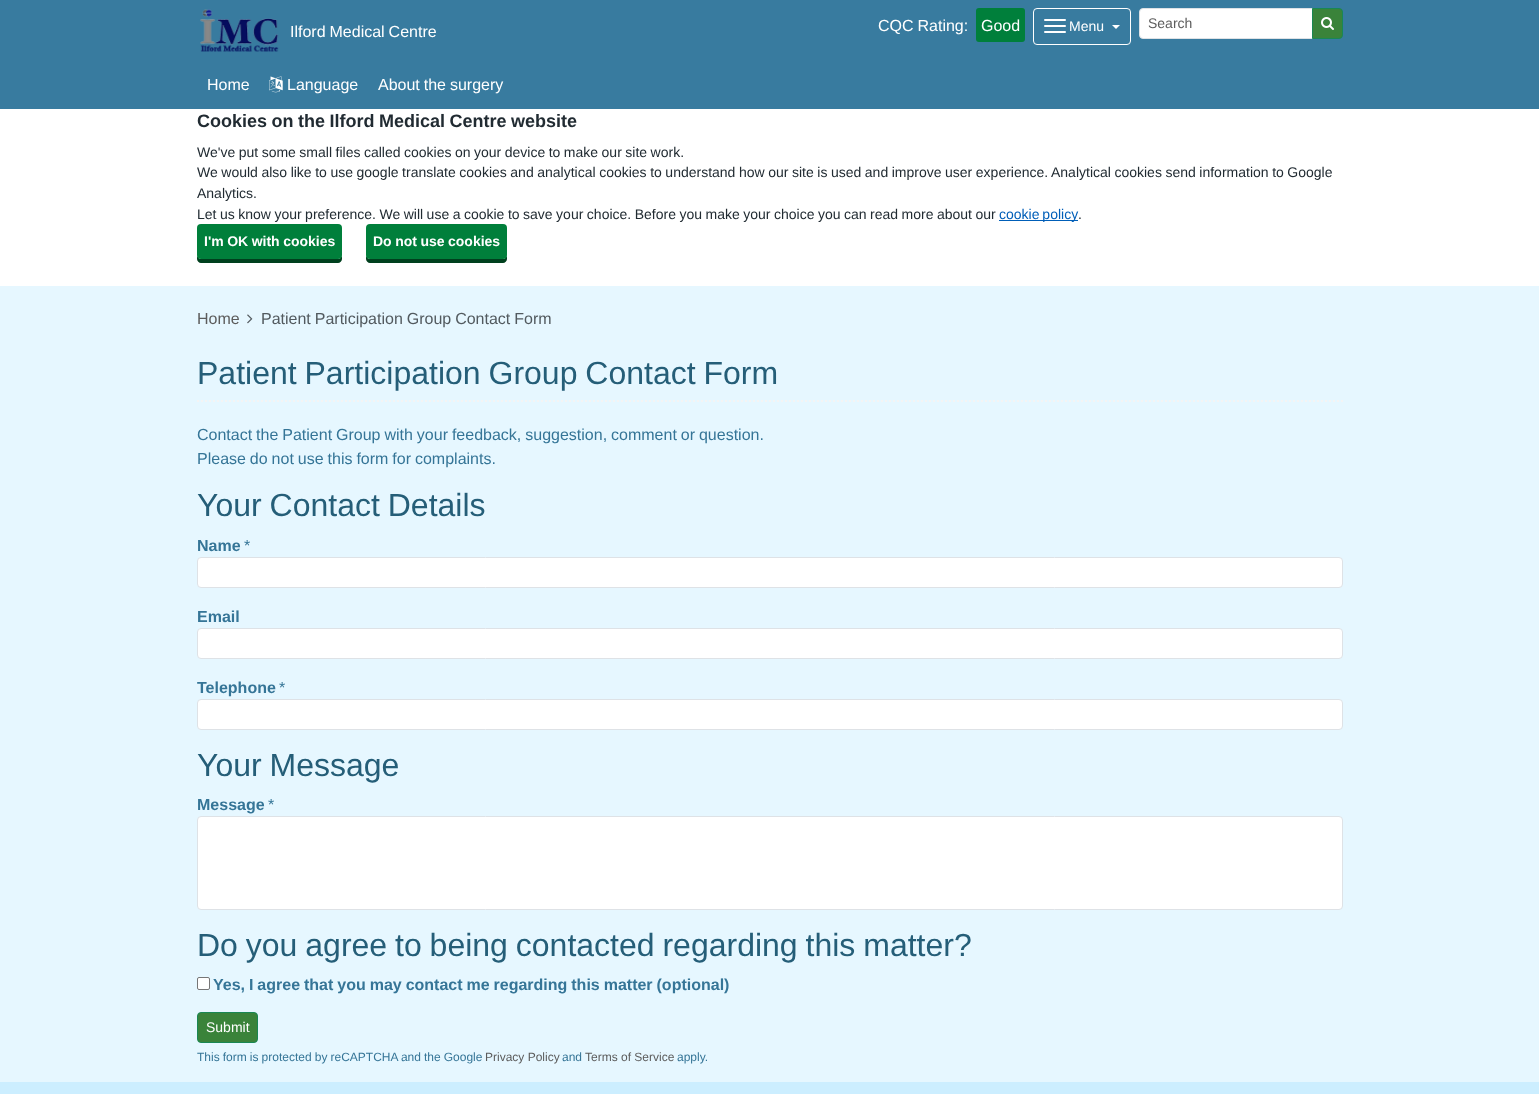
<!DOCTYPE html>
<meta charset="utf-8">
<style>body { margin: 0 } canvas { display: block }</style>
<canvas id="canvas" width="1539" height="1094"></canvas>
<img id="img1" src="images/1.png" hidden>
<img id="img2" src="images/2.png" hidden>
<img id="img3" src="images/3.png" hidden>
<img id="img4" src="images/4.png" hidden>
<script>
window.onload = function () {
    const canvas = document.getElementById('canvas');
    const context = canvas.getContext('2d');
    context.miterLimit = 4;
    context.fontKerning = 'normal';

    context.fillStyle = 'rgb(230, 247, 255)';
    context.fillRect(0, 0, 1539, 1094);
    context.fillStyle = 'rgb(56, 123, 159)';
    context.fillRect(0, 0, 1539, 109);
    context.drawImage(document.getElementById('img1'), 200, 9, 79, 43);
    context.fillStyle = 'rgb(0, 127, 59)';
    context.beginPath();
    context.roundRect(976, 8, 49, 34, 3);
    context.fill();
    context.beginPath();
    context.roundRect(1033.5, 8.5, 97, 36, 3.5);
    context.strokeStyle = 'rgb(255, 255, 255)';
    context.stroke();
    context.fillStyle = 'rgb(255, 255, 255)';
    context.beginPath();
    context.roundRect(1044, 19, 22, 2, 1);
    context.fill();
    context.beginPath();
    context.roundRect(1044, 25, 22, 2, 1);
    context.fill();
    context.beginPath();
    context.roundRect(1044, 31, 22, 2, 1);
    context.fill();
    context.beginPath();
    context.moveTo(1112, 25);
    context.lineTo(1120, 25);
    context.lineTo(1116, 29);
    context.closePath();
    context.fill();
    context.beginPath();
    context.roundRect(1139.5, 8.5, 173, 30, [3.5, 0, 0, 3.5]);
    context.fill();
    context.strokeStyle = 'rgb(222, 226, 230)';
    context.stroke();
    context.fillStyle = 'rgb(58, 131, 58)';
    context.beginPath();
    context.roundRect(1312.5, 8.5, 30, 30, [0, 3.5, 3.5, 0]);
    context.fill();
    context.strokeStyle = 'rgb(25, 135, 84)';
    context.stroke();
    context.drawImage(document.getElementById('img2'), 1321, 17, 13, 13);
    context.drawImage(document.getElementById('img3'), 269, 76, 14, 17);
    context.drawImage(document.getElementById('img4'), 247, 314, 6, 10);
    context.beginPath();
    context.moveTo(197, 401);
    context.lineTo(1343, 401);
    context.strokeStyle = 'rgb(244, 244, 244)';
    context.lineWidth = 2;
    context.setLineDash([2, 2]);
    context.stroke();
    context.fillStyle = 'rgb(255, 255, 255)';
    context.beginPath();
    context.roundRect(197.5, 557.5, 1145, 30, 3.5);
    context.fill();
    context.strokeStyle = 'rgb(222, 226, 230)';
    context.lineWidth = 1;
    context.setLineDash([]);
    context.stroke();
    context.beginPath();
    context.roundRect(197.5, 628.5, 1145, 30, 3.5);
    context.fill();
    context.stroke();
    context.beginPath();
    context.roundRect(197.5, 699.5, 1145, 30, 3.5);
    context.fill();
    context.stroke();
    context.beginPath();
    context.roundRect(197.5, 816.5, 1145, 93, 3.5);
    context.fill();
    context.stroke();
    context.beginPath();
    context.roundRect(197.5, 977.5, 12, 12, 1.5);
    context.fill();
    context.strokeStyle = 'rgb(118, 118, 118)';
    context.stroke();
    context.fillStyle = 'rgb(58, 131, 58)';
    context.beginPath();
    context.roundRect(197.5, 1012.5, 60, 30, 3.5);
    context.fill();
    context.strokeStyle = 'rgb(25, 135, 84)';
    context.stroke();
    context.fillStyle = 'rgb(204, 238, 255)';
    context.fillRect(0, 1082, 1539, 12);
    context.fillStyle = 'rgb(255, 255, 255)';
    context.fillRect(0, 109, 1539, 177);
    context.fillStyle = 'rgb(0, 94, 184)';
    context.fillRect(999, 220, 79, 1);
    context.fillStyle = 'rgb(0, 64, 30)';
    context.beginPath();
    context.moveTo(197, 255);
    context.lineTo(197, 259);
    context.bezierCurveTo(197, 261, 199, 263, 201, 263);
    context.lineTo(338, 263);
    context.bezierCurveTo(340, 263, 342, 261, 342, 259);
    context.lineTo(342, 255);
    context.bezierCurveTo(342, 257, 340, 259, 338, 259);
    context.lineTo(201, 259);
    context.bezierCurveTo(199, 259, 197, 257, 197, 255);
    context.closePath();
    context.fill();
    context.fillStyle = 'rgb(0, 127, 59)';
    context.beginPath();
    context.roundRect(197, 224, 145, 35, 4);
    context.fill();
    context.fillStyle = 'rgb(0, 64, 30)';
    context.beginPath();
    context.moveTo(366, 255);
    context.lineTo(366, 259);
    context.bezierCurveTo(366, 261, 368, 263, 370, 263);
    context.lineTo(503, 263);
    context.bezierCurveTo(505, 263, 507, 261, 507, 259);
    context.lineTo(507, 255);
    context.bezierCurveTo(507, 257, 505, 259, 503, 259);
    context.lineTo(370, 259);
    context.bezierCurveTo(368, 259, 366, 257, 366, 255);
    context.closePath();
    context.fill();
    context.fillStyle = 'rgb(0, 127, 59)';
    context.beginPath();
    context.roundRect(366, 224, 141, 35, 4);
    context.fill();
    context.wordSpacing = '-0.5px';
    context.font = '16px Liberation Sans';
    context.fillStyle = 'rgb(255, 255, 255)';
    context.fillText('Ilford Medical Centre', 290, 37);
    context.fillText('CQC Rating:', 878, 31);
    context.wordSpacing = '0px';
    context.fillText('Good', 981, 31);
    context.font = '14px Liberation Sans';
    context.fillText('Menu', 1069, 31);
    context.fillStyle = 'rgb(92, 92, 92)';
    context.fillText('Search', 1148, 28);
    context.font = '16px Liberation Sans';
    context.fillStyle = 'rgb(255, 255, 255)';
    context.fillText('Home', 207, 90);
    context.fillText('Language', 287, 90);
    context.wordSpacing = '-0.5px';
    context.fillText('About the surgery', 378, 90);
    context.wordSpacing = '0px';
    context.fillStyle = 'rgb(92, 92, 92)';
    context.fillText('Home', 197, 324);
    context.wordSpacing = '-0.5px';
    context.fillStyle = 'rgb(82, 90, 95)';
    context.fillText('Patient Participation Group Contact Form', 261, 324);
    context.wordSpacing = '-1px';
    context.font = '32px Liberation Sans';
    context.fillStyle = 'rgb(37, 94, 120)';
    context.fillText('Patient Participation Group Contact Form', 197, 384);
    context.wordSpacing = '-0.5px';
    context.font = '16px Liberation Sans';
    context.fillStyle = 'rgb(53, 117, 151)';
    context.fillText('Contact the Patient Group with your feedback, suggestion, comment or question.', 197, 440);
    context.fillText('Please do not use this form for complaints.', 197, 464);
    context.wordSpacing = '-1px';
    context.font = '32px Liberation Sans';
    context.fillStyle = 'rgb(37, 94, 120)';
    context.fillText('Your Contact Details', 197, 516);
    context.wordSpacing = '0px';
    context.font = 'bold 16px Liberation Sans';
    context.fillStyle = 'rgb(53, 117, 151)';
    context.fillText('Name', 197, 551);
    context.font = '16px Liberation Sans';
    context.fillText('*', 244, 551);
    context.font = 'bold 16px Liberation Sans';
    context.fillText('Email', 197, 622);
    context.fillText('Telephone', 197, 693);
    context.font = '16px Liberation Sans';
    context.fillText('*', 279, 693);
    context.wordSpacing = '-1px';
    context.font = '32px Liberation Sans';
    context.fillStyle = 'rgb(37, 94, 120)';
    context.fillText('Your Message', 197, 776);
    context.wordSpacing = '0px';
    context.font = 'bold 16px Liberation Sans';
    context.fillStyle = 'rgb(53, 117, 151)';
    context.fillText('Message', 197, 810);
    context.font = '16px Liberation Sans';
    context.fillText('*', 268, 810);
    context.wordSpacing = '-1px';
    context.font = '32px Liberation Sans';
    context.fillStyle = 'rgb(37, 94, 120)';
    context.fillText('Do you agree to being contacted regarding this matter?', 197, 956);
    context.wordSpacing = '-0.5px';
    context.font = 'bold 16px Liberation Sans';
    context.fillStyle = 'rgb(53, 117, 151)';
    context.fillText('Yes, I agree that you may contact me regarding this matter (optional)', 213, 990);
    context.wordSpacing = '0px';
    context.font = '14px Liberation Sans';
    context.fillStyle = 'rgb(255, 255, 255)';
    context.fillText('Submit', 206, 1032);
    context.wordSpacing = '-0.25px';
    context.font = '12px Liberation Sans';
    context.fillStyle = 'rgb(53, 117, 151)';
    context.fillText('This form is protected by reCAPTCHA and the Google', 197, 1061);
    context.wordSpacing = '0px';
    context.fillStyle = 'rgb(92, 92, 92)';
    context.fillText('Privacy Policy', 485, 1061);
    context.fillStyle = 'rgb(53, 117, 151)';
    context.fillText('and', 562, 1061);
    context.fillStyle = 'rgb(92, 92, 92)';
    context.fillText('Terms of Service', 585, 1061);
    context.fillStyle = 'rgb(53, 117, 151)';
    context.fillText('apply.', 677, 1061);
    context.wordSpacing = '-0.5px';
    context.font = 'bold 18px Liberation Sans';
    context.fillStyle = 'rgb(33, 43, 50)';
    context.fillText('Cookies on the Ilford Medical Centre website', 197, 127);
    context.wordSpacing = '-0.4px';
    context.font = '14px Liberation Sans';
    context.fillText('We\'ve put some small files called cookies on your device to make our site work.', 197, 157);
    context.wordSpacing = '-0.35px';
    context.fillText('We would also like to use google translate cookies and analytical cookies to understand how our site is used and improve user experience. Analytical cookies send information to Google', 197, 177);
    context.wordSpacing = '0px';
    context.fillText('Analytics.', 197, 198);
    context.wordSpacing = '-0.4px';
    context.fillText('Let us know your preference. We will use a cookie to save your choice. Before you make your choice you can read more about our', 197, 219);
    context.wordSpacing = '-1px';
    context.fillStyle = 'rgb(0, 94, 184)';
    context.fillText('cookie policy', 999, 219);
    context.wordSpacing = '0px';
    context.fillStyle = 'rgb(33, 43, 50)';
    context.fillText('.', 1078, 219);
    context.wordSpacing = '-0.4px';
    context.font = 'bold 14px Liberation Sans';
    context.fillStyle = 'rgb(255, 255, 255)';
    context.fillText('I\'m OK with cookies', 204, 246);
    context.fillText('Do not use cookies', 373, 246);
};
</script>
